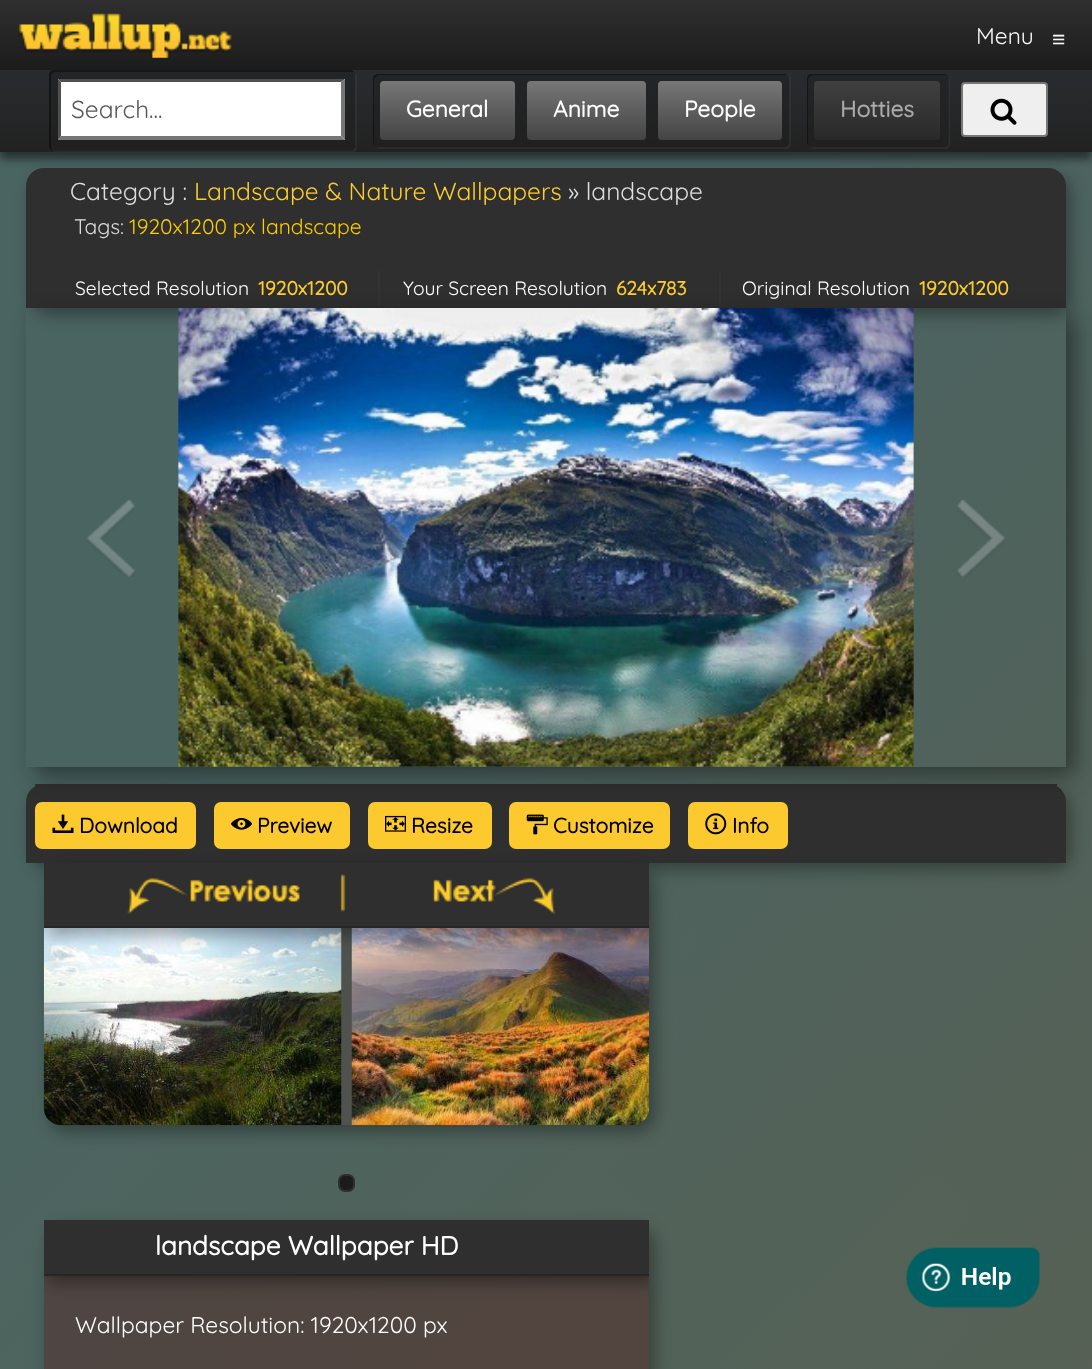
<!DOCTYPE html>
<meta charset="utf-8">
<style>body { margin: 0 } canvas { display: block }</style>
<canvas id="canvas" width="1092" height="1369"></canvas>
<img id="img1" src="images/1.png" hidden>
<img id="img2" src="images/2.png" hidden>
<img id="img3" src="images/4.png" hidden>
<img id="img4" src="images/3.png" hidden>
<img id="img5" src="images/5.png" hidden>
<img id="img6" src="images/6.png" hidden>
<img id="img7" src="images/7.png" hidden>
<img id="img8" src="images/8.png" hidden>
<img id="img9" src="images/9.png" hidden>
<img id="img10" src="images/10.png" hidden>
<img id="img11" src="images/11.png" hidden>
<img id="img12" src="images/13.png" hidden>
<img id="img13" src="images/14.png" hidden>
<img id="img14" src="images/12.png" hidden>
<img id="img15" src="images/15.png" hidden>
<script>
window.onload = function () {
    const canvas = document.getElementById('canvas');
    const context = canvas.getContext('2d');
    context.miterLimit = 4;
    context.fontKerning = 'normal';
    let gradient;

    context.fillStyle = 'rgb(255, 255, 255)';
    context.fillRect(0, 0, 1092, 1369);
    gradient = context.createLinearGradient(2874, 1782, -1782, 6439);
    gradient.addColorStop(0.1, 'rgb(127, 84, 41)');
    gradient.addColorStop(0.8, 'rgb(144, 144, 57)');
    context.fillStyle = gradient;
    context.fillRect(0, 152, 1092, 1217);
    gradient = context.createLinearGradient(-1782, 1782, 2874, 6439);
    gradient.addColorStop(0.1, 'rgb(74, 100, 98)');
    gradient.addColorStop(0.8, 'rgba(74, 100, 98, 0)');
    context.fillStyle = gradient;
    context.fillRect(0, 152, 1092, 1217);
    context.fillStyle = 'rgba(0, 0, 0, 0.5)';
    context.filter = 'blur(4.5px)';
    context.beginPath();
    context.rect(0, 79, 1092, 80);
    context.fill();
    context.filter = 'none';
    context.strokeStyle = 'rgb(34, 34, 34)';
    context.lineWidth = 2;
    context.strokeRect(-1, 69, 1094, 82);
    gradient = context.createLinearGradient(546, 0, 546, 70);
    gradient.addColorStop(0, 'rgb(47, 47, 47)');
    gradient.addColorStop(1, 'rgb(28, 28, 28)');
    context.fillStyle = gradient;
    context.fillRect(0, 0, 1092, 70);
    context.drawImage(document.getElementById('img1'), 18, 13, 214, 45);
    gradient = context.createLinearGradient(546, 70, 546, 151);
    gradient.addColorStop(0, 'rgb(41, 44, 47)');
    gradient.addColorStop(1, 'rgb(34, 34, 34)');
    context.fillStyle = gradient;
    context.fillRect(0, 70, 1092, 80);
    context.fillStyle = 'rgba(127, 127, 127, 0.1)';
    context.beginPath();
    context.moveTo(52, 150);
    context.bezierCurveTo(53, 151, 54, 152, 56, 152);
    context.lineTo(352, 152);
    context.bezierCurveTo(355, 152, 357, 150, 357, 147);
    context.lineTo(357, 77);
    context.bezierCurveTo(357, 75, 356, 74, 355, 73);
    context.lineTo(355, 75);
    context.lineTo(355, 145);
    context.bezierCurveTo(355, 148, 353, 150, 350, 150);
    context.lineTo(54, 150);
    context.closePath();
    context.fill();
    context.fillStyle = 'rgba(30, 30, 30, 0.5)';
    context.beginPath();
    context.roundRect(49, 70, 306, 81, 5);
    context.fill();
    context.fillStyle = 'rgba(0, 0, 0, 0.4)';
    context.beginPath();
    context.moveTo(56, 72);
    context.lineTo(352, 72);
    context.lineTo(354, 72);
    context.bezierCurveTo(353, 71, 352, 70, 350, 70);
    context.lineTo(54, 70);
    context.bezierCurveTo(51, 70, 49, 72, 49, 75);
    context.lineTo(49, 146);
    context.bezierCurveTo(49, 148, 50, 150, 53, 151);
    context.bezierCurveTo(52, 150, 51, 149, 51, 147);
    context.lineTo(51, 77);
    context.bezierCurveTo(51, 74, 53, 72, 56, 72);
    context.closePath();
    context.fill();
    context.fillStyle = 'rgb(255, 255, 255)';
    context.fillRect(58, 79, 287, 61);
    context.fillStyle = 'rgb(79, 79, 79)';
    context.beginPath();
    context.moveTo(58, 79);
    context.lineTo(345, 79);
    context.lineTo(341, 82);
    context.lineTo(61, 82);
    context.closePath();
    context.fill();
    context.fillStyle = 'rgb(118, 118, 118)';
    context.beginPath();
    context.moveTo(345, 79);
    context.lineTo(345, 140);
    context.lineTo(341, 136);
    context.lineTo(341, 82);
    context.closePath();
    context.fill();
    context.beginPath();
    context.moveTo(345, 140);
    context.lineTo(58, 140);
    context.lineTo(61, 136);
    context.lineTo(341, 136);
    context.closePath();
    context.fill();
    context.fillStyle = 'rgb(79, 79, 79)';
    context.beginPath();
    context.moveTo(58, 140);
    context.lineTo(58, 79);
    context.lineTo(61, 82);
    context.lineTo(61, 136);
    context.closePath();
    context.fill();
    context.fillStyle = 'rgba(127, 127, 127, 0.1)';
    context.beginPath();
    context.moveTo(376, 146);
    context.bezierCurveTo(376, 148, 378, 149, 380, 149);
    context.lineTo(786, 149);
    context.bezierCurveTo(789, 149, 791, 147, 791, 144);
    context.lineTo(791, 80);
    context.bezierCurveTo(791, 78, 790, 76, 788, 75);
    context.bezierCurveTo(789, 76, 789, 78, 789, 79);
    context.lineTo(789, 142);
    context.bezierCurveTo(789, 145, 787, 147, 784, 147);
    context.lineTo(378, 147);
    context.closePath();
    context.fill();
    context.fillStyle = 'rgba(30, 30, 30, 0.5)';
    context.beginPath();
    context.roundRect(373, 74, 416, 73, 5);
    context.fill();
    context.fillStyle = 'rgba(0, 0, 0, 0.4)';
    context.beginPath();
    context.moveTo(380, 75);
    context.lineTo(787, 75);
    context.bezierCurveTo(786, 74, 785, 74, 784, 74);
    context.lineTo(378, 74);
    context.bezierCurveTo(375, 74, 373, 76, 373, 79);
    context.lineTo(373, 142);
    context.bezierCurveTo(373, 143, 374, 145, 374, 146);
    context.lineTo(374, 144);
    context.lineTo(374, 80);
    context.bezierCurveTo(374, 78, 377, 75, 380, 75);
    context.closePath();
    context.fill();
    gradient = context.createLinearGradient(447, 81, 447, 140);
    gradient.addColorStop(0, 'rgb(119, 119, 119)');
    gradient.addColorStop(1, 'rgb(68, 68, 68)');
    context.fillStyle = gradient;
    context.beginPath();
    context.roundRect(380, 81, 135, 59, 4);
    context.fill();
    gradient = context.createLinearGradient(586, 81, 586, 140);
    gradient.addColorStop(0, 'rgb(119, 119, 119)');
    gradient.addColorStop(1, 'rgb(68, 68, 68)');
    context.fillStyle = gradient;
    context.beginPath();
    context.roundRect(527, 81, 119, 59, 4);
    context.fill();
    gradient = context.createLinearGradient(720, 81, 720, 140);
    gradient.addColorStop(0, 'rgb(119, 119, 119)');
    gradient.addColorStop(1, 'rgb(68, 68, 68)');
    context.fillStyle = gradient;
    context.beginPath();
    context.roundRect(658, 81, 124, 59, 4);
    context.fill();
    context.fillStyle = 'rgba(127, 127, 127, 0.1)';
    context.beginPath();
    context.moveTo(810, 146);
    context.bezierCurveTo(810, 148, 812, 149, 814, 149);
    context.lineTo(945, 149);
    context.bezierCurveTo(948, 149, 950, 147, 950, 144);
    context.lineTo(950, 80);
    context.bezierCurveTo(950, 78, 949, 77, 948, 76);
    context.bezierCurveTo(948, 77, 948, 78, 948, 79);
    context.lineTo(948, 142);
    context.bezierCurveTo(948, 145, 946, 147, 943, 147);
    context.lineTo(812, 147);
    context.closePath();
    context.fill();
    context.fillStyle = 'rgba(30, 30, 30, 0.5)';
    context.beginPath();
    context.roundRect(807, 74, 142, 73, 5);
    context.fill();
    context.fillStyle = 'rgba(0, 0, 0, 0.4)';
    context.beginPath();
    context.moveTo(814, 75);
    context.lineTo(945, 75);
    context.lineTo(948, 76);
    context.bezierCurveTo(947, 75, 946, 74, 944, 74);
    context.lineTo(812, 74);
    context.bezierCurveTo(809, 74, 807, 76, 807, 79);
    context.lineTo(807, 142);
    context.bezierCurveTo(807, 143, 808, 145, 808, 146);
    context.lineTo(808, 144);
    context.lineTo(808, 80);
    context.bezierCurveTo(808, 78, 811, 75, 814, 75);
    context.closePath();
    context.fill();
    gradient = context.createLinearGradient(877, 81, 877, 140);
    gradient.addColorStop(0, 'rgb(64, 64, 64)');
    gradient.addColorStop(1, 'rgb(41, 41, 41)');
    context.fillStyle = gradient;
    context.beginPath();
    context.roundRect(814, 81, 126, 59, 4);
    context.fill();
    context.fillStyle = 'rgb(239, 239, 239)';
    context.beginPath();
    context.roundRect(962, 83, 85, 53, 3);
    context.fill();
    context.strokeStyle = 'rgb(118, 118, 118)';
    context.stroke();
    context.drawImage(document.getElementById('img2'), 990, 98, 27, 27);
    context.drawImage(document.getElementById('img3'), 178, 308, 736, 459);
    context.fillStyle = 'rgba(0, 0, 0, 0.34)';
    context.filter = 'blur(8px)';
    context.beginPath();
    context.roundRect(32, 175, 1039, 140, 18);
    context.fill();
    context.filter = 'none';
    context.fillStyle = 'rgb(47, 47, 47)';
    context.beginPath();
    context.roundRect(26, 168, 1040, 140, [18, 18, 0, 0]);
    context.fill();
    context.fillStyle = 'rgb(51, 51, 51)';
    context.fillRect(719, 270, 2, 36);
    context.fillRect(378, 270, 2, 36);
    context.fillStyle = 'rgba(0, 0, 0, 0.34)';
    context.filter = 'blur(8px)';
    context.beginPath();
    context.roundRect(32, 791, 1039, 79, 18);
    context.fill();
    context.filter = 'none';
    context.fillStyle = 'rgb(47, 47, 47)';
    context.beginPath();
    context.roundRect(26, 784, 1040, 79, [18, 18, 0, 0]);
    context.fill();
    context.fillRect(35, 784, 1022, 2);
    context.fillStyle = 'rgb(252, 201, 46)';
    context.beginPath();
    context.roundRect(214, 802, 136, 47, 7);
    context.fill();
    context.beginPath();
    context.roundRect(368, 802, 124, 47, 7);
    context.fill();
    context.beginPath();
    context.roundRect(509, 802, 161, 47, 7);
    context.fill();
    context.beginPath();
    context.roundRect(688, 802, 100, 47, 7);
    context.fill();
    context.save();
    context.beginPath();
    context.moveTo(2, 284);
    context.lineTo(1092, 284);
    context.lineTo(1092, 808);
    context.lineTo(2, 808);
    context.closePath();
    context.moveTo(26, 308);
    context.lineTo(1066, 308);
    context.lineTo(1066, 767);
    context.lineTo(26, 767);
    context.closePath();
    context.clip('evenodd');
    context.fillStyle = 'rgba(0, 0, 0, 0.44)';
    context.filter = 'blur(10.5px)';
    context.beginPath();
    context.rect(35, 317, 1040, 458);
    context.fill();
    context.filter = 'none';
    context.restore();
    context.drawImage(document.getElementById('img4'), 87, 499, 48, 78);
    context.drawImage(document.getElementById('img5'), 178, 308, 736, 459);
    context.drawImage(document.getElementById('img6'), 957, 499, 48, 78);
    context.beginPath();
    context.roundRect(35, 802, 161, 47, 7);
    context.fill();
    context.drawImage(document.getElementById('img7'), 52, 814, 22, 19);
    context.drawImage(document.getElementById('img8'), 231, 817, 21, 13);
    context.drawImage(document.getElementById('img9'), 385, 815, 21, 17);
    context.drawImage(document.getElementById('img10'), 526, 814, 22, 21);
    context.drawImage(document.getElementById('img11'), 705, 813, 22, 22);
    context.save();
    context.beginPath();
    context.moveTo(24, 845);
    context.lineTo(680, 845);
    context.lineTo(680, 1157);
    context.lineTo(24, 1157);
    context.closePath();
    context.moveTo(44, 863);
    context.lineTo(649, 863);
    context.lineTo(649, 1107);
    context.bezierCurveTo(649, 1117, 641, 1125, 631, 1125);
    context.lineTo(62, 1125);
    context.bezierCurveTo(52, 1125, 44, 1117, 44, 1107);
    context.closePath();
    context.clip('evenodd');
    context.fillStyle = 'rgba(0, 0, 0, 0.34)';
    context.filter = 'blur(8px)';
    context.beginPath();
    context.roundRect(49, 870, 606, 262, 18);
    context.fill();
    context.filter = 'none';
    context.restore();
    context.fillStyle = 'rgba(80, 26, 26, 0.23)';
    context.beginPath();
    context.roundRect(44, 863, 605, 262, [0, 0, 18, 18]);
    context.fill();
    context.drawImage(document.getElementById('img12'), 43, 927, 299, 199);
    context.drawImage(document.getElementById('img13'), 351, 927, 299, 199);
    context.save();
    context.beginPath();
    context.moveTo(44, 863);
    context.lineTo(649, 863);
    context.lineTo(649, 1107);
    context.bezierCurveTo(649, 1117, 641, 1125, 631, 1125);
    context.lineTo(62, 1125);
    context.bezierCurveTo(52, 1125, 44, 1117, 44, 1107);
    context.closePath();
    context.clip();
    context.fillStyle = 'rgba(0, 0, 0, 0.34)';
    context.filter = 'blur(8px)';
    context.beginPath();
    context.rect(49, 870, 606, 65);
    context.fill();
    context.filter = 'none';
    context.restore();
    context.fillStyle = 'rgb(47, 47, 47)';
    context.fillRect(44, 863, 605, 63);
    context.fillStyle = 'rgb(38, 38, 38)';
    context.fillRect(44, 926, 605, 2);
    context.drawImage(document.getElementById('img14'), 127, 874, 429, 40);
    context.fillStyle = 'rgb(27, 27, 27)';
    context.beginPath();
    context.roundRect(339, 1175, 15, 16, 6);
    context.fill();
    context.strokeStyle = 'rgb(47, 47, 47)';
    context.stroke();
    context.save();
    context.beginPath();
    context.moveTo(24, 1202);
    context.lineTo(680, 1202);
    context.lineTo(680, 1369);
    context.lineTo(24, 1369);
    context.closePath();
    context.moveTo(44, 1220);
    context.lineTo(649, 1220);
    context.lineTo(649, 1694);
    context.bezierCurveTo(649, 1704, 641, 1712, 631, 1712);
    context.lineTo(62, 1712);
    context.bezierCurveTo(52, 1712, 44, 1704, 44, 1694);
    context.closePath();
    context.clip('evenodd');
    context.fillStyle = 'rgba(0, 0, 0, 0.34)';
    context.filter = 'blur(8px)';
    context.beginPath();
    context.roundRect(49, 1227, 606, 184, 18);
    context.fill();
    context.filter = 'none';
    context.restore();
    context.fillStyle = 'rgba(80, 26, 26, 0.23)';
    context.fillRect(44, 1276, 605, 93);
    context.fillRect(44, 1276, 605, 93);
    context.fillStyle = 'rgba(0, 0, 0, 0.05)';
    context.fillRect(44, 1276, 605, 2);
    context.save();
    context.beginPath();
    context.moveTo(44, 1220);
    context.lineTo(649, 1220);
    context.lineTo(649, 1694);
    context.bezierCurveTo(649, 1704, 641, 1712, 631, 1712);
    context.lineTo(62, 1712);
    context.bezierCurveTo(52, 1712, 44, 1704, 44, 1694);
    context.closePath();
    context.clip();
    context.fillStyle = 'rgba(0, 0, 0, 0.34)';
    context.filter = 'blur(8px)';
    context.beginPath();
    context.rect(49, 1227, 606, 56);
    context.fill();
    context.filter = 'none';
    context.restore();
    context.fillStyle = 'rgb(47, 47, 47)';
    context.fillRect(44, 1220, 605, 54);
    context.fillStyle = 'rgb(38, 38, 38)';
    context.fillRect(44, 1274, 605, 2);
    context.drawImage(document.getElementById('img15'), 906, 1247, 134, 61);
    context.font = '300 22.75px Quicksand';
    context.fillStyle = 'rgb(248, 248, 248)';
    context.fillText('Menu', 976, 44);
    context.font = '22.75px Liberation Sans';
    context.fillText('≡', 1052, 47);
    context.font = '300 24.5px Quicksand';
    context.fillStyle = 'rgb(87, 87, 87)';
    context.fillText('Search...', 71, 118);
    context.font = 'bold 22.75px Quicksand';
    context.fillStyle = 'rgb(255, 255, 255)';
    context.fillText('General', 406, 117);
    context.fillText('Anime', 553, 117);
    context.fillText('People', 684, 117);
    context.fillStyle = 'rgb(170, 170, 170)';
    context.fillText('Hotties', 840, 117);
    context.font = '300 24.5px Quicksand';
    context.fillStyle = 'rgb(221, 221, 221)';
    context.fillText('Category :', 70, 200);
    context.fillStyle = 'rgb(252, 204, 46)';
    context.fillText('Landscape & Nature Wallpapers', 194, 200);
    context.fillStyle = 'rgb(221, 221, 221)';
    context.fillText('» landscape', 568, 200);
    context.font = '300 21px Quicksand';
    context.fillText('Tags:', 74, 234);
    context.fillStyle = 'rgb(255, 204, 0)';
    context.fillText('1920x1200 px landscape', 129, 234);
    context.font = '300 19.25px Quicksand';
    context.fillStyle = 'rgb(255, 255, 255)';
    context.fillText('Selected Resolution', 75, 295);
    context.font = 'bold 19.25px Quicksand';
    context.fillStyle = 'rgb(252, 204, 46)';
    context.fillText('1920x1200', 258, 295);
    context.font = '300 19.25px Quicksand';
    context.fillStyle = 'rgb(255, 255, 255)';
    context.fillText('Your Screen Resolution', 403, 295);
    context.font = 'bold 19.25px Quicksand';
    context.fillStyle = 'rgb(252, 204, 46)';
    context.fillText('624x783', 616, 295);
    context.font = '300 19.25px Quicksand';
    context.fillStyle = 'rgb(255, 255, 255)';
    context.fillText('Original Resolution', 742, 295);
    context.font = 'bold 19.25px Quicksand';
    context.fillStyle = 'rgb(252, 204, 46)';
    context.fillText('1920x1200', 919, 295);
    context.font = 'bold 21px Quicksand';
    context.fillStyle = 'rgb(0, 0, 0)';
    context.fillText('Download', 79, 833);
    context.fillText('Preview', 257, 833);
    context.fillText('Resize', 411, 833);
    context.fillText('Customize', 553, 833);
    context.fillText('Info', 732, 833);
    context.font = 'bold 26.25px Quicksand';
    context.fillStyle = 'rgb(255, 255, 255)';
    context.fillText('landscape Wallpaper HD', 155, 1255);
    context.font = '300 22.75px Quicksand';
    context.fillText('Wallpaper Resolution: 1920x1200 px', 75, 1333);
};
</script>
